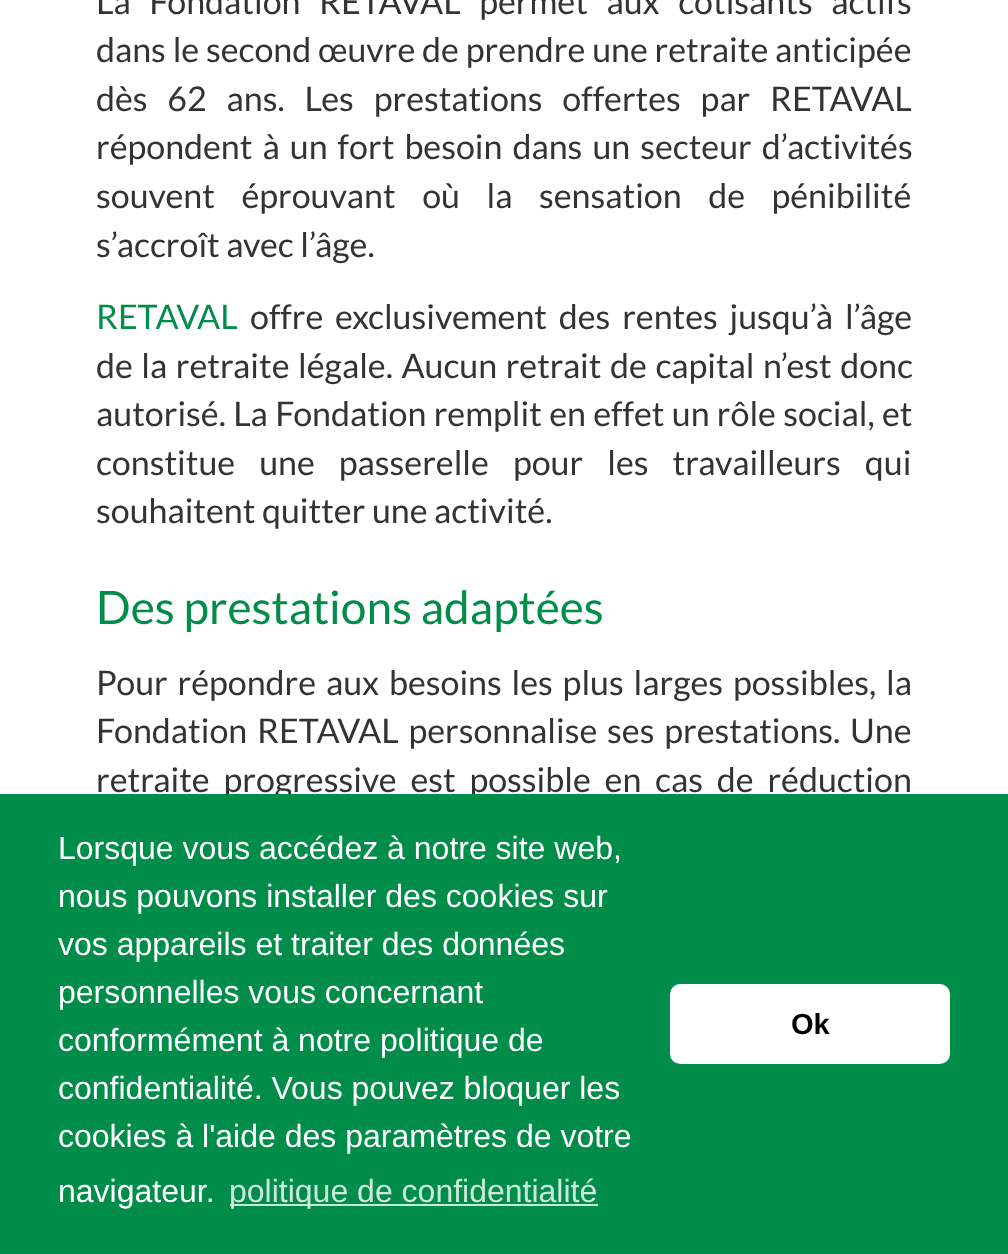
<!DOCTYPE html>
<meta charset="utf-8">
<style>body { margin: 0 } canvas { display: block }</style>
<canvas id="canvas" width="1008" height="1254"></canvas>
<script>
window.onload = function () {
    const canvas = document.getElementById('canvas');
    const context = canvas.getContext('2d');
    context.miterLimit = 4;
    context.fontKerning = 'normal';

    context.fillStyle = 'rgb(255, 255, 255)';
    context.fillRect(0, 0, 1008, 1254);
    context.wordSpacing = '12px';
    context.font = '34px Lato';
    context.fillStyle = 'rgb(51, 51, 51)';
    context.fillText('La Fondation RETAVAL permet aux cotisants actifs', 96, 14);
    context.wordSpacing = '0.25px';
    context.fillText('dans le second œuvre de prendre une retraite anticipée', 96, 62);
    context.wordSpacing = '13.25px';
    context.fillText('dès 62 ans. Les prestations offertes par RETAVAL', 96, 111);
    context.wordSpacing = '3.5px';
    context.fillText('répondent à un fort besoin dans un secteur d’activités', 96, 159);
    context.wordSpacing = '20px';
    context.fillText('souvent éprouvant où la sensation de pénibilité', 96, 208);
    context.wordSpacing = '0px';
    context.fillText('s’accroît avec l’âge.', 96, 257);
    context.fillStyle = 'rgb(0, 141, 73)';
    context.fillText('RETAVAL', 96, 329);
    context.wordSpacing = '5.25px';
    context.fillStyle = 'rgb(51, 51, 51)';
    context.fillText('offre exclusivement des rentes jusqu’à l’âge', 250, 329);
    context.wordSpacing = '2px';
    context.fillText('de la retraite légale. Aucun retrait de capital n’est donc', 96, 378);
    context.wordSpacing = '0.75px';
    context.fillText('autorisé. La Fondation remplit en effet un rôle social, et', 96, 426);
    context.wordSpacing = '17.5px';
    context.fillText('constitue une passerelle pour les travailleurs qui', 96, 475);
    context.wordSpacing = '0px';
    context.fillText('souhaitent quitter une activité.', 96, 523);
    context.font = '46px Lato';
    context.fillStyle = 'rgb(0, 141, 73)';
    context.fillText('Des prestations adaptées', 96, 624);
    context.wordSpacing = '3.25px';
    context.font = '34px Lato';
    context.fillStyle = 'rgb(51, 51, 51)';
    context.fillText('Pour répondre aux besoins les plus larges possibles, la', 96, 695);
    context.fillText('Fondation RETAVAL personnalise ses prestations. Une', 96, 743);
    context.wordSpacing = '7.25px';
    context.fillText('retraite progressive est possible en cas de réduction', 96, 792);
    context.fillStyle = 'rgb(0, 141, 73)';
    context.fillRect(0, 794, 1008, 460);
    context.wordSpacing = '0px';
    context.font = '32px Liberation Sans';
    context.fillStyle = 'rgb(255, 255, 255)';
    context.fillText('Lorsque vous accédez à notre site web,', 58, 859);
    context.fillText('nous pouvons installer des cookies sur', 58, 907);
    context.fillText('vos appareils et traiter des données', 58, 955);
    context.fillText('personnelles vous concernant', 58, 1003);
    context.fillText('conformément à notre politique de', 58, 1051);
    context.fillText('confidentialité. Vous pouvez bloquer les', 58, 1099);
    context.fillText('cookies à l\'aide des paramètres de votre', 58, 1147);
    context.fillText('navigateur.', 58, 1202);
    context.fillStyle = 'rgb(204, 232, 219)';
    context.fillRect(230, 1204, 368, 2);
    context.fillText('politique de confidentialité', 229, 1202);
    context.fillStyle = 'rgb(255, 255, 255)';
    context.beginPath();
    context.roundRect(670, 984, 280, 80, 10);
    context.fill();
    context.font = 'bold 29px Liberation Sans';
    context.fillStyle = 'rgb(0, 0, 0)';
    context.fillText('Ok', 791, 1034);
};
</script>
